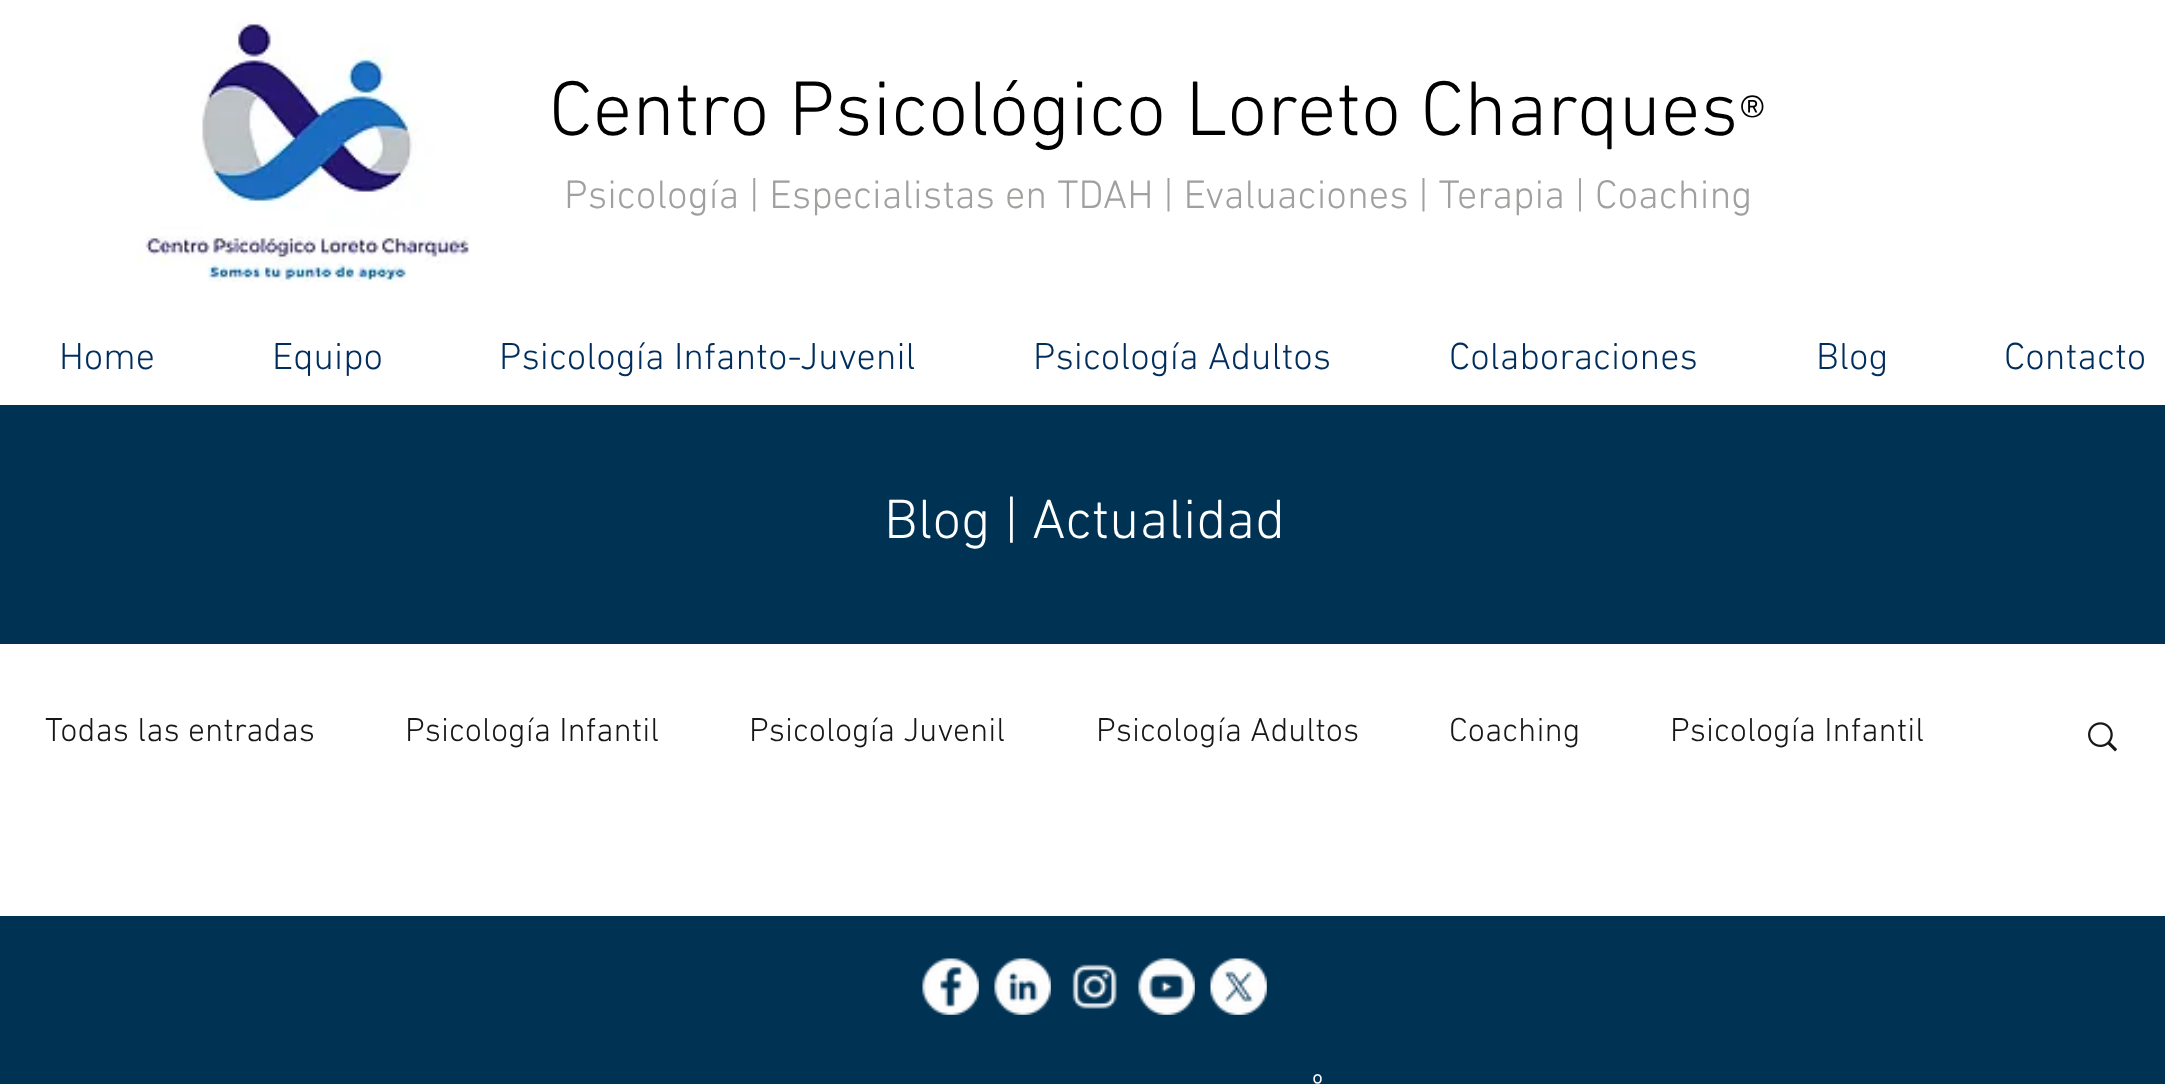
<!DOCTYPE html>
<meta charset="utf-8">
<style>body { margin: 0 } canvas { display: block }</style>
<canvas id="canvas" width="2165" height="1084"></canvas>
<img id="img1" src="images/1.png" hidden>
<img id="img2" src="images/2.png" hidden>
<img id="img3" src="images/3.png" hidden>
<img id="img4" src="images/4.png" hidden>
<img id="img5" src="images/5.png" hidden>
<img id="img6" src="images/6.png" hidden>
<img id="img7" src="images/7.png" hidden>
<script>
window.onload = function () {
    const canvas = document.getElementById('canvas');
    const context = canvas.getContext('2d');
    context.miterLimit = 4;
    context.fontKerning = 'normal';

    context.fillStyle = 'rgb(255, 255, 255)';
    context.fillRect(0, 0, 2165, 1084);
    context.drawImage(document.getElementById('img1'), 137, 20, 333, 263);
    context.fillStyle = 'rgb(0, 50, 84)';
    context.fillRect(0, 405, 2165, 239);
    context.drawImage(document.getElementById('img2'), 2088, 722, 29, 30);
    context.fillRect(0, 916, 2165, 168);
    context.drawImage(document.getElementById('img3'), 922, 958, 57, 57);
    context.drawImage(document.getElementById('img4'), 994, 958, 57, 57);
    context.drawImage(document.getElementById('img5'), 1072, 964, 45, 45);
    context.drawImage(document.getElementById('img6'), 1138, 958, 57, 57);
    context.drawImage(document.getElementById('img7'), 1210, 958, 57, 57);
    context.font = '300 78.75px "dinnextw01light"';
    context.fillStyle = 'rgb(0, 0, 0)';
    context.fillText('Centro Psicológico Loreto Charques', 549, 135);
    context.font = '300 58px "dinnextw01light"';
    context.fillText('®', 1739, 135);
    context.font = '300 40.5px "dinnextw01light"';
    context.fillStyle = 'rgb(160, 160, 159)';
    context.fillText('Psicología | Especialistas en TDAH | Evaluaciones | Terapia | Coaching', 564, 208);
    context.font = '300 38.25px "dinnextw01light"';
    context.fillStyle = 'rgb(0, 45, 92)';
    context.fillText('Home', 59, 369);
    context.fillText('Equipo', 272, 369);
    context.fillText('Psicología Infanto-Juvenil', 499, 369);
    context.fillText('Psicología Adultos', 1033, 369);
    context.fillText('Colaboraciones', 1449, 369);
    context.fillText('Blog', 1816, 369);
    context.fillText('Contacto', 2004, 369);
    context.font = '300 56.25px "dinnextw01light"';
    context.fillStyle = 'rgb(255, 255, 255)';
    context.fillText('Blog | Actualidad', 884, 538);
    context.font = '300 33.75px "dinnextw01light"';
    context.fillStyle = 'rgb(23, 23, 23)';
    context.fillText('Todas las entradas', 45, 741);
    context.fillText('Psicología Infantil', 405, 741);
    context.fillText('Psicología Juvenil', 749, 741);
    context.fillText('Psicología Adultos', 1096, 741);
    context.fillText('Coaching', 1449, 741);
    context.fillText('Psicología Infantil', 1670, 741);
    context.font = '300 32px "dinnextw01light"';
    context.fillStyle = 'rgb(255, 255, 255)';
    context.fillText('º', 1312, 1096);
};
</script>
